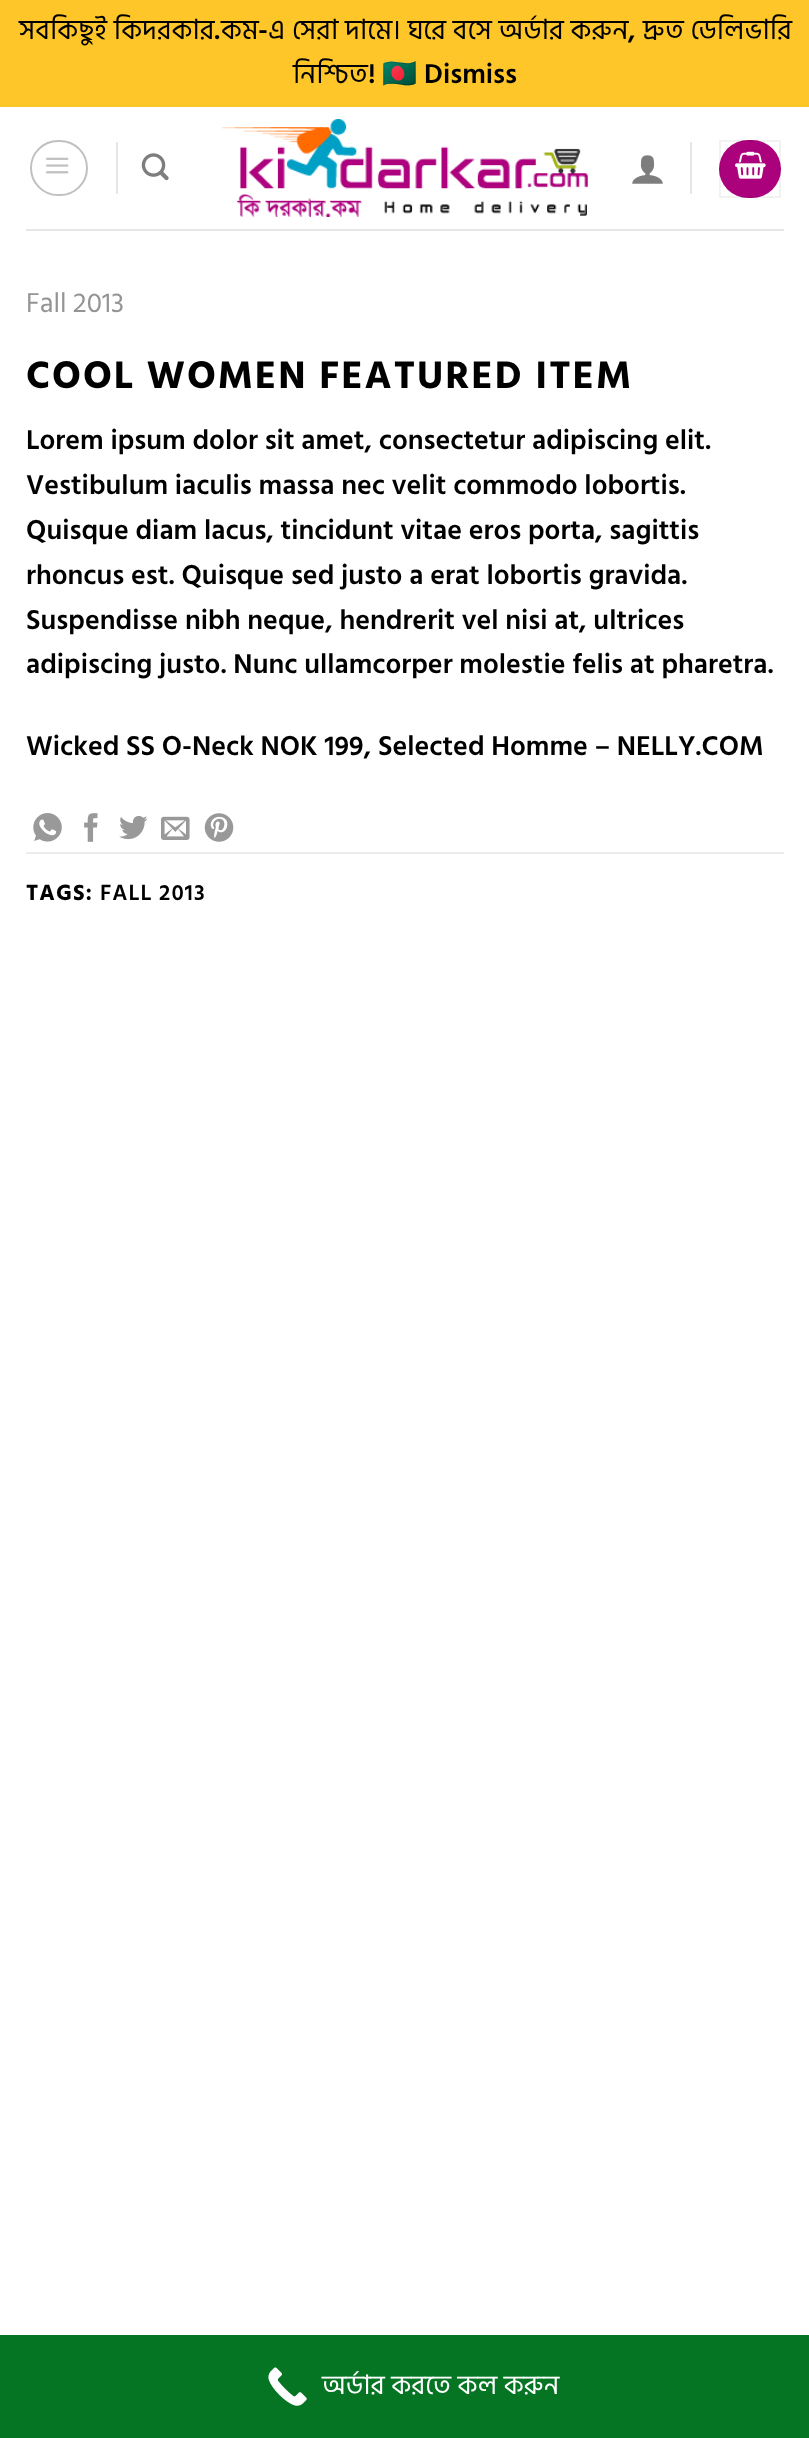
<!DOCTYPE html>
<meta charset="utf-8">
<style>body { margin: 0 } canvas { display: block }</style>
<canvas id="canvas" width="809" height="2438"></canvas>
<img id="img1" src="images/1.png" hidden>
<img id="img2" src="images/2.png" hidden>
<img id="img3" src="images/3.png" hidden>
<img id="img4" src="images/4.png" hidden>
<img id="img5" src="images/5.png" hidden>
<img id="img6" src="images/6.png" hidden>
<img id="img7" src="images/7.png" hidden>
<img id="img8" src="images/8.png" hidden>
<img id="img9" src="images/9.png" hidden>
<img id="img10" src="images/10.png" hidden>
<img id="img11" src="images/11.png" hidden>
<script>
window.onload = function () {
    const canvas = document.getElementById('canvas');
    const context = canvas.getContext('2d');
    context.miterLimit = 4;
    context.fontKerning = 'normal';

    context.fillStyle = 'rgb(255, 198, 41)';
    context.fillRect(0, 0, 809, 2438);
    context.fillStyle = 'rgb(255, 255, 255)';
    context.fillRect(0, 107, 809, 2228);
    context.beginPath();
    context.roundRect(31, 141, 56, 54, 27);
    context.strokeStyle = 'rgb(192, 192, 192)';
    context.lineWidth = 2;
    context.stroke();
    context.drawImage(document.getElementById('img1'), 46, 157, 23, 17);
    context.fillStyle = 'rgb(230, 230, 230)';
    context.fillRect(116, 142, 2, 52);
    context.drawImage(document.getElementById('img2'), 141, 153, 28, 28);
    context.drawImage(document.getElementById('img3'), 222, 119, 366, 98);
    context.drawImage(document.getElementById('img4'), 632, 155, 31, 29);
    context.fillRect(690, 142, 2, 52);
    context.fillStyle = 'rgb(172, 1, 125)';
    context.beginPath();
    context.roundRect(719, 140, 62, 58, 29);
    context.fill();
    context.strokeStyle = 'rgba(0, 0, 0, 0.05)';
    context.strokeRect(720, 141, 60, 56);
    context.drawImage(document.getElementById('img5'), 735, 151, 31, 28);
    context.fillStyle = 'rgb(230, 230, 230)';
    context.fillRect(26, 229, 758, 2);
    context.drawImage(document.getElementById('img6'), 33, 813, 29, 29);
    context.drawImage(document.getElementById('img7'), 84, 813, 14, 29);
    context.drawImage(document.getElementById('img8'), 119, 815, 29, 25);
    context.drawImage(document.getElementById('img9'), 161, 816, 29, 24);
    context.drawImage(document.getElementById('img10'), 204, 813, 30, 29);
    context.fillStyle = 'rgb(236, 236, 236)';
    context.fillRect(26, 852, 758, 2);
    context.fillStyle = 'rgb(5, 117, 35)';
    context.fillRect(0, 2335, 809, 103);
    context.drawImage(document.getElementById('img11'), 268, 2367, 39, 39);
    context.wordSpacing = '0.5px';
    context.font = '28px Hind Siliguri';
    context.fillStyle = 'rgb(0, 0, 0)';
    context.fillText('সবকিছুই কিদরকার', 19, 39);
    context.wordSpacing = '0px';
    context.fillText('কম', 221, 39);
    context.font = '600 28px Hind Siliguri';
    context.fillText('-', 258, 39);
    context.wordSpacing = '0.5px';
    context.font = '28px Hind Siliguri';
    context.fillText('এ সেরা দামে। ঘরে বসে অর্ডার করুন', 268, 39);
    context.fillText('দ্রুত ডেলিভারি', 643, 39);
    context.wordSpacing = '0px';
    context.font = '600 28px Hind Siliguri';
    context.fillText('.', 214, 39);
    context.fillText(',', 628, 39);
    context.font = '28px Hind Siliguri';
    context.fillText('নিশ্চিত', 293, 83);
    context.font = '600 28px Hind Siliguri';
    context.fillText('!', 368, 83);
    context.font = 'bold 28px Noto Color Emoji';
    context.fillText('🇧🇩', 382, 83);
    context.font = '600 28px Hind Siliguri';
    context.fillText('Dismiss', 424, 83);
    context.font = '28px "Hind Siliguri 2"';
    context.fillStyle = 'rgb(148, 148, 148)';
    context.fillText('Fall 2013', 26, 312);
    context.letterSpacing = '2px';
    context.font = 'bold 39.25px Hind Siliguri';
    context.fillStyle = 'rgb(0, 0, 0)';
    context.fillText('COOL WOMEN FEATURED ITEM', 26, 388);
    context.letterSpacing = '0px';
    context.font = '600 28px Hind Siliguri';
    context.fillText('Lorem ipsum dolor sit amet, consectetur adipiscing elit.', 26, 449);
    context.fillText('Vestibulum iaculis massa nec velit commodo lobortis.', 26, 494);
    context.fillText('Quisque diam lacus, tincidunt vitae eros porta, sagittis', 26, 539);
    context.fillText('rhoncus est. Quisque sed justo a erat lobortis gravida.', 26, 584);
    context.fillText('Suspendisse nibh neque, hendrerit vel nisi at, ultrices', 26, 629);
    context.fillText('adipiscing justo. Nunc ullamcorper molestie felis at pharetra.', 26, 673);
    context.fillText('Wicked SS O-Neck NOK 199, Selected Homme – NELLY.COM', 26, 755);
    context.letterSpacing = '1.1px';
    context.font = 'bold 22.5px Hind Siliguri';
    context.fillText('TAGS:', 26, 900);
    context.font = '600 22.5px Hind Siliguri';
    context.fillText('FALL 2013', 100, 900);
    context.letterSpacing = '0px';
    context.wordSpacing = '0.5px';
    context.font = '26.9px Hind Siliguri';
    context.fillStyle = 'rgb(255, 255, 255)';
    context.fillText('অর্ডার করতে কল করুন', 322, 2394);
};
</script>
